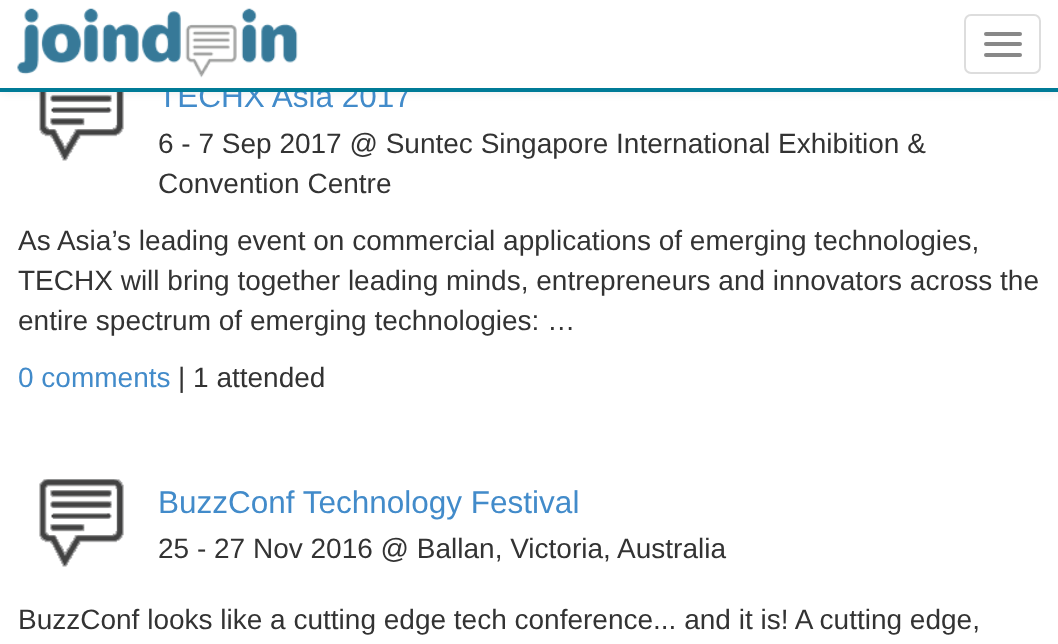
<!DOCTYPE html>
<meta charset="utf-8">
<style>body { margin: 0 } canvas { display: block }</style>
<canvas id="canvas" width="1058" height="644"></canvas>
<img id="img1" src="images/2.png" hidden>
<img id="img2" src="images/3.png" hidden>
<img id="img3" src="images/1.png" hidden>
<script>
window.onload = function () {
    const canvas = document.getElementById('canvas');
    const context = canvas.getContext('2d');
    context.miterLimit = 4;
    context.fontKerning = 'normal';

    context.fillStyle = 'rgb(255, 255, 255)';
    context.fillRect(0, 0, 1058, 644);
    context.drawImage(document.getElementById('img1'), 39, 92, 85, 69);
    context.fillStyle = 'rgba(0, 0, 0, 0.07)';
    context.filter = 'blur(4.5px)';
    context.beginPath();
    context.rect(0, 2, 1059, 91);
    context.fill();
    context.filter = 'none';
    context.drawImage(document.getElementById('img2'), 39, 479, 85, 88);
    context.font = '31.5px Liberation Sans';
    context.fillStyle = 'rgb(66, 139, 202)';
    context.fillText('TECHX Asia 2017', 158, 107);
    context.fillStyle = 'rgb(255, 255, 255)';
    context.fillRect(0, 0, 1058, 88);
    context.beginPath();
    context.roundRect(965, 15, 75, 58, 6);
    context.strokeStyle = 'rgb(221, 221, 221)';
    context.lineWidth = 2;
    context.stroke();
    context.fillStyle = 'rgb(136, 136, 136)';
    context.beginPath();
    context.roundRect(984, 53, 38, 4, 2);
    context.fill();
    context.beginPath();
    context.roundRect(984, 42, 38, 4, 2);
    context.fill();
    context.beginPath();
    context.roundRect(984, 32, 38, 4, 2);
    context.fill();
    context.drawImage(document.getElementById('img3'), 17, 8, 281, 70);
    context.fillStyle = 'rgb(0, 123, 151)';
    context.fillRect(0, 88, 1058, 4);
    context.font = '28px Liberation Sans';
    context.fillStyle = 'rgb(51, 51, 51)';
    context.fillText('6 - 7 Sep 2017 @ Suntec Singapore International Exhibition &', 158, 153);
    context.fillText('Convention Centre', 158, 193);
    context.fillText('As Asia’s leading event on commercial applications of emerging technologies,', 18, 250);
    context.fillText('TECHX will bring together leading minds, entrepreneurs and innovators across the', 18, 290);
    context.fillText('entire spectrum of emerging technologies: …', 18, 330);
    context.fillStyle = 'rgb(66, 139, 202)';
    context.fillText('0 comments', 18, 387);
    context.fillStyle = 'rgb(51, 51, 51)';
    context.fillText('| 1 attended', 178, 387);
    context.font = '31.5px Liberation Sans';
    context.fillStyle = 'rgb(66, 139, 202)';
    context.fillText('BuzzConf Technology Festival', 158, 513);
    context.font = '28px Liberation Sans';
    context.fillStyle = 'rgb(51, 51, 51)';
    context.fillText('25 - 27 Nov 2016 @ Ballan, Victoria, Australia', 158, 558);
    context.fillText('BuzzConf looks like a cutting edge tech conference... and it is! A cutting edge,', 18, 629);
};
</script>
